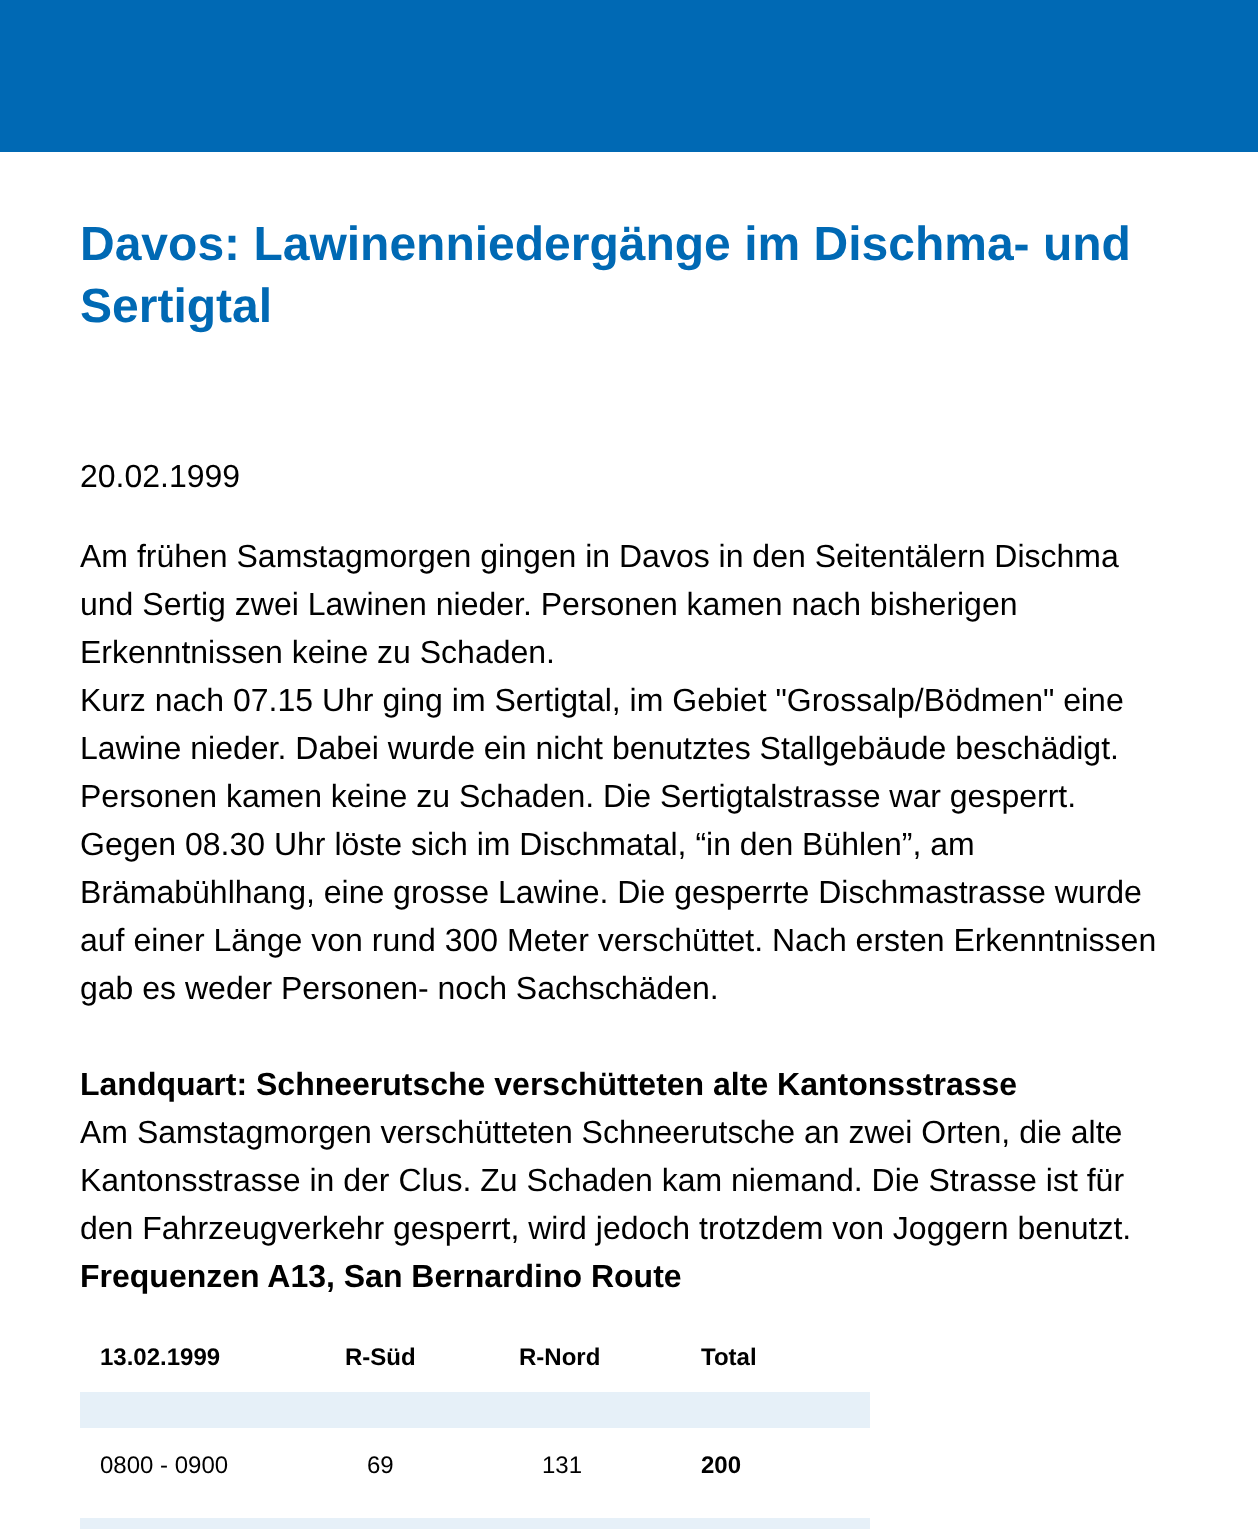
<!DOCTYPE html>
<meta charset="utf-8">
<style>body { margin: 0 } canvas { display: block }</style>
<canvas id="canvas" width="1258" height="1529"></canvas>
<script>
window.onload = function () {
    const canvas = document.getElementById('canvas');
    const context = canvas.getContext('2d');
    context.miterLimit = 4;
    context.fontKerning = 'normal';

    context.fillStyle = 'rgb(255, 255, 255)';
    context.fillRect(0, 0, 1258, 1529);
    context.fillStyle = 'rgb(0, 105, 180)';
    context.fillRect(0, 0, 1258, 152);
    context.fillStyle = 'rgb(230, 240, 248)';
    context.fillRect(80, 1392, 790, 36);
    context.fillRect(80, 1518, 790, 11);
    context.font = 'bold 48px Liberation Sans';
    context.fillStyle = 'rgb(0, 105, 180)';
    context.fillText('Davos: Lawinenniedergänge im Dischma- und', 80, 260);
    context.fillText('Sertigtal', 80, 322);
    context.font = '32px Liberation Sans';
    context.fillStyle = 'rgb(0, 0, 0)';
    context.fillText('20.02.1999', 80, 487);
    context.fillText('Am frühen Samstagmorgen gingen in Davos in den Seitentälern Dischma', 80, 567);
    context.fillText('und Sertig zwei Lawinen nieder. Personen kamen nach bisherigen', 80, 615);
    context.fillText('Erkenntnissen keine zu Schaden.', 80, 663);
    context.fillText('Kurz nach 07.15 Uhr ging im Sertigtal, im Gebiet "Grossalp/Bödmen" eine', 80, 711);
    context.fillText('Lawine nieder. Dabei wurde ein nicht benutztes Stallgebäude beschädigt.', 80, 759);
    context.fillText('Personen kamen keine zu Schaden. Die Sertigtalstrasse war gesperrt.', 80, 807);
    context.fillText('Gegen 08.30 Uhr löste sich im Dischmatal, “in den Bühlen”, am', 80, 855);
    context.fillText('Brämabühlhang, eine grosse Lawine. Die gesperrte Dischmastrasse wurde', 80, 903);
    context.fillText('auf einer Länge von rund 300 Meter verschüttet. Nach ersten Erkenntnissen', 80, 951);
    context.fillText('gab es weder Personen- noch Sachschäden.', 80, 999);
    context.font = 'bold 32px Liberation Sans';
    context.fillText('Landquart: Schneerutsche verschütteten alte Kantonsstrasse', 80, 1095);
    context.font = '32px Liberation Sans';
    context.fillText('Am Samstagmorgen verschütteten Schneerutsche an zwei Orten, die alte', 80, 1143);
    context.fillText('Kantonsstrasse in der Clus. Zu Schaden kam niemand. Die Strasse ist für', 80, 1191);
    context.fillText('den Fahrzeugverkehr gesperrt, wird jedoch trotzdem von Joggern benutzt.', 80, 1239);
    context.font = 'bold 32px Liberation Sans';
    context.fillText('Frequenzen A13, San Bernardino Route', 80, 1287);
    context.font = 'bold 24px Liberation Sans';
    context.fillText('13.02.1999', 100, 1365);
    context.fillText('R-Süd', 345, 1365);
    context.fillText('R-Nord', 519, 1365);
    context.fillText('Total', 701, 1365);
    context.font = '24px Liberation Sans';
    context.fillText('0800 - 0900', 100, 1473);
    context.fillText('69', 367, 1473);
    context.fillText('131', 542, 1473);
    context.font = 'bold 24px Liberation Sans';
    context.fillText('200', 701, 1473);
};
</script>
